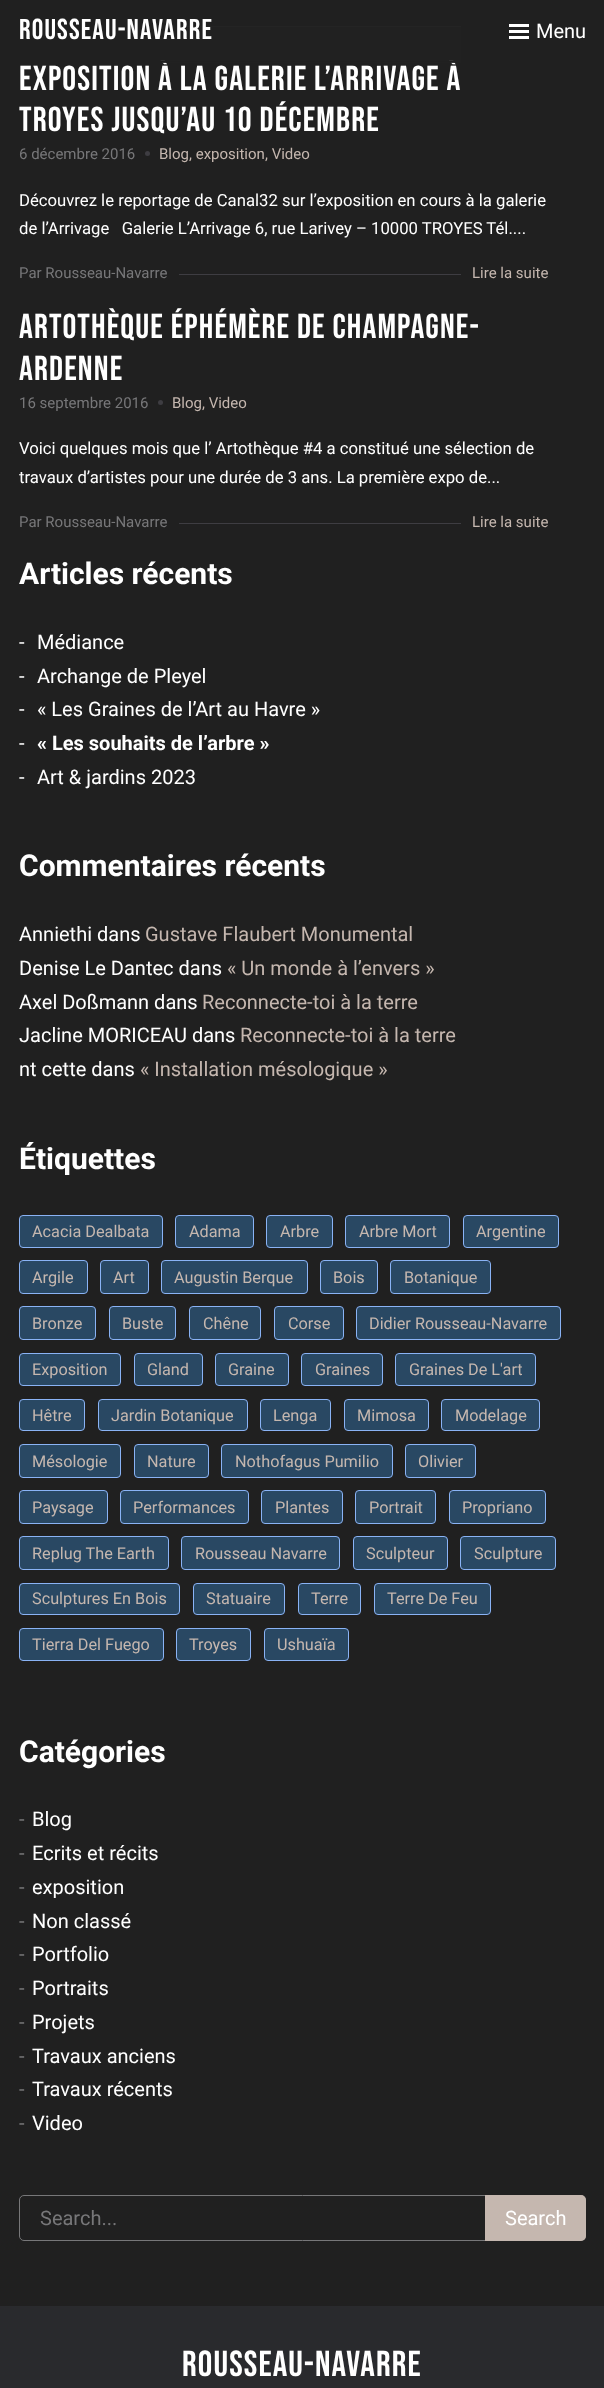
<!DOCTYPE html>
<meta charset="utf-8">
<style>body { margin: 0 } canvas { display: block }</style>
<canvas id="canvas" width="604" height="2388"></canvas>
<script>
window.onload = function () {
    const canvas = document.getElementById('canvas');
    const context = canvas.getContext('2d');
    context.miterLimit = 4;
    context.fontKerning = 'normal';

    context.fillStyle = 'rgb(32, 32, 32)';
    context.fillRect(0, 0, 604, 2388);
    context.fillStyle = 'rgb(255, 255, 255)';
    context.fillRect(509, 30, 20, 3);
    context.fillRect(509, 24, 20, 3);
    context.fillRect(509, 36, 20, 3);
    context.fillStyle = 'rgb(62, 61, 66)';
    context.fillRect(179, 26, 282, 1);
    context.beginPath();
    context.arc(147.5, 153.5, 2.5, 0, 2 * Math.PI);
    context.fill();
    context.fillRect(179, 274, 282, 1);
    context.beginPath();
    context.arc(160.5, 402.5, 2.5, 0, 2 * Math.PI);
    context.fill();
    context.fillRect(179, 523, 282, 1);
    context.fillStyle = 'rgb(41, 72, 99)';
    context.beginPath();
    context.roundRect(19.5, 1215.5, 143, 32, 3.5);
    context.fill();
    context.strokeStyle = 'rgb(138, 179, 245)';
    context.stroke();
    context.beginPath();
    context.roundRect(175.5, 1215.5, 78, 32, 3.5);
    context.fill();
    context.stroke();
    context.beginPath();
    context.roundRect(266.5, 1215.5, 66, 32, 3.5);
    context.fill();
    context.stroke();
    context.beginPath();
    context.roundRect(345.5, 1215.5, 104, 32, 3.5);
    context.fill();
    context.stroke();
    context.beginPath();
    context.roundRect(463.5, 1215.5, 95, 32, 3.5);
    context.fill();
    context.stroke();
    context.beginPath();
    context.roundRect(19.5, 1260.5, 68, 33, 3.5);
    context.fill();
    context.stroke();
    context.beginPath();
    context.roundRect(100.5, 1260.5, 48, 33, 3.5);
    context.fill();
    context.stroke();
    context.beginPath();
    context.roundRect(161.5, 1260.5, 146, 33, 3.5);
    context.fill();
    context.stroke();
    context.beginPath();
    context.roundRect(320.5, 1260.5, 57, 33, 3.5);
    context.fill();
    context.stroke();
    context.beginPath();
    context.roundRect(390.5, 1260.5, 100, 33, 3.5);
    context.fill();
    context.stroke();
    context.beginPath();
    context.roundRect(19.5, 1306.5, 76, 33, 3.5);
    context.fill();
    context.stroke();
    context.beginPath();
    context.roundRect(109.5, 1306.5, 66, 33, 3.5);
    context.fill();
    context.stroke();
    context.beginPath();
    context.roundRect(189.5, 1306.5, 71, 33, 3.5);
    context.fill();
    context.stroke();
    context.beginPath();
    context.roundRect(274.5, 1306.5, 69, 33, 3.5);
    context.fill();
    context.stroke();
    context.beginPath();
    context.roundRect(356.5, 1306.5, 204, 33, 3.5);
    context.fill();
    context.stroke();
    context.beginPath();
    context.roundRect(19.5, 1353.5, 101, 32, 3.5);
    context.fill();
    context.stroke();
    context.beginPath();
    context.roundRect(134.5, 1353.5, 68, 32, 3.5);
    context.fill();
    context.stroke();
    context.beginPath();
    context.roundRect(215.5, 1353.5, 73, 32, 3.5);
    context.fill();
    context.stroke();
    context.beginPath();
    context.roundRect(301.5, 1353.5, 81, 32, 3.5);
    context.fill();
    context.stroke();
    context.beginPath();
    context.roundRect(395.5, 1353.5, 140, 32, 3.5);
    context.fill();
    context.stroke();
    context.beginPath();
    context.roundRect(19.5, 1399.5, 65, 31, 3.5);
    context.fill();
    context.stroke();
    context.beginPath();
    context.roundRect(98.5, 1399.5, 149, 31, 3.5);
    context.fill();
    context.stroke();
    context.beginPath();
    context.roundRect(260.5, 1399.5, 70, 31, 3.5);
    context.fill();
    context.stroke();
    context.beginPath();
    context.roundRect(344.5, 1399.5, 84, 31, 3.5);
    context.fill();
    context.stroke();
    context.beginPath();
    context.roundRect(441.5, 1399.5, 98, 31, 3.5);
    context.fill();
    context.stroke();
    context.beginPath();
    context.roundRect(19.5, 1444.5, 101, 33, 3.5);
    context.fill();
    context.stroke();
    context.beginPath();
    context.roundRect(134.5, 1444.5, 74, 33, 3.5);
    context.fill();
    context.stroke();
    context.beginPath();
    context.roundRect(221.5, 1444.5, 171, 33, 3.5);
    context.fill();
    context.stroke();
    context.beginPath();
    context.roundRect(405.5, 1444.5, 70, 33, 3.5);
    context.fill();
    context.stroke();
    context.beginPath();
    context.roundRect(19.5, 1490.5, 88, 33, 3.5);
    context.fill();
    context.stroke();
    context.beginPath();
    context.roundRect(120.5, 1490.5, 128, 33, 3.5);
    context.fill();
    context.stroke();
    context.beginPath();
    context.roundRect(261.5, 1490.5, 81, 33, 3.5);
    context.fill();
    context.stroke();
    context.beginPath();
    context.roundRect(355.5, 1490.5, 80, 33, 3.5);
    context.fill();
    context.stroke();
    context.beginPath();
    context.roundRect(449.5, 1490.5, 96, 33, 3.5);
    context.fill();
    context.stroke();
    context.beginPath();
    context.roundRect(19.5, 1536.5, 149, 33, 3.5);
    context.fill();
    context.stroke();
    context.beginPath();
    context.roundRect(181.5, 1536.5, 158, 33, 3.5);
    context.fill();
    context.stroke();
    context.beginPath();
    context.roundRect(353.5, 1536.5, 94, 33, 3.5);
    context.fill();
    context.stroke();
    context.beginPath();
    context.roundRect(460.5, 1536.5, 95, 33, 3.5);
    context.fill();
    context.stroke();
    context.beginPath();
    context.roundRect(19.5, 1583.5, 160, 31, 3.5);
    context.fill();
    context.stroke();
    context.beginPath();
    context.roundRect(193.5, 1583.5, 91, 31, 3.5);
    context.fill();
    context.stroke();
    context.beginPath();
    context.roundRect(298.5, 1583.5, 62, 31, 3.5);
    context.fill();
    context.stroke();
    context.beginPath();
    context.roundRect(374.5, 1583.5, 116, 31, 3.5);
    context.fill();
    context.stroke();
    context.beginPath();
    context.roundRect(19.5, 1628.5, 144, 32, 3.5);
    context.fill();
    context.stroke();
    context.beginPath();
    context.roundRect(176.5, 1628.5, 74, 32, 3.5);
    context.fill();
    context.stroke();
    context.beginPath();
    context.roundRect(264.5, 1628.5, 84, 32, 3.5);
    context.fill();
    context.stroke();
    context.beginPath();
    context.roundRect(19.5, 2195.5, 566, 45, 4.5);
    context.strokeStyle = 'rgb(119, 119, 121)';
    context.stroke();
    context.fillStyle = 'rgb(197, 183, 175)';
    context.beginPath();
    context.roundRect(485, 2195, 101, 46, [0, 5, 5, 0]);
    context.fill();
    context.fillStyle = 'rgb(41, 42, 45)';
    context.fillRect(0, 2306, 604, 82);
    context.font = '20px Roboto';
    context.fillStyle = 'rgb(255, 255, 255)';
    context.fillText('Menu', 536, 38);
    context.letterSpacing = '1.15px';
    context.font = '34.5px Bebas Neue';
    context.fillText('Exposition à la galerie l’Arrivage à', 19, 90);
    context.fillStyle = 'rgba(33, 33, 33, 0.9)';
    context.fillRect(160, 26, 301, 37);
    context.font = '28.75px Bebas Neue';
    context.fillStyle = 'rgb(255, 255, 255)';
    context.fillText('Rousseau-Navarre', 19, 39);
    context.fillStyle = 'rgb(32, 32, 32)';
    context.fillRect(161, 61, 294, 1);
    context.font = '34.5px Bebas Neue';
    context.fillStyle = 'rgb(255, 255, 255)';
    context.fillText('Troyes jusqu’au 10 décembre', 19, 131);
    context.letterSpacing = '0px';
    context.font = '15px Roboto';
    context.fillStyle = 'rgb(119, 119, 121)';
    context.fillText('6 décembre 2016', 19, 159);
    context.fillStyle = 'rgb(197, 183, 175)';
    context.fillText('Blog', 159, 159);
    context.fillText(', exposition', 189, 159);
    context.fillText(', Video', 265, 159);
    context.font = '16.7px Roboto';
    context.fillStyle = 'rgb(255, 255, 255)';
    context.fillText('Découvrez le reportage de Canal32 sur l’exposition en cours à la galerie', 19, 206);
    context.fillText('de l’Arrivage   Galerie L’Arrivage 6, rue Larivey – 10000 TROYES Tél....', 19, 234);
    context.font = '15px Roboto';
    context.fillStyle = 'rgb(119, 119, 121)';
    context.fillText('Par Rousseau-Navarre', 19, 278);
    context.fillStyle = 'rgb(197, 183, 175)';
    context.fillText('Lire la suite', 472, 278);
    context.letterSpacing = '1.15px';
    context.font = '34.5px Bebas Neue';
    context.fillStyle = 'rgb(255, 255, 255)';
    context.fillText('Artothèque éphémère de Champagne-', 19, 338);
    context.fillText('Ardenne', 19, 380);
    context.letterSpacing = '0px';
    context.font = '15px Roboto';
    context.fillStyle = 'rgb(119, 119, 121)';
    context.fillText('16 septembre 2016', 19, 408);
    context.fillStyle = 'rgb(197, 183, 175)';
    context.fillText('Blog', 172, 408);
    context.fillText(', Video', 202, 408);
    context.font = '16.7px Roboto';
    context.fillStyle = 'rgb(255, 255, 255)';
    context.fillText('Voici quelques mois que l’ Artothèque #4 a constitué une sélection de', 19, 454);
    context.fillText('travaux d’artistes pour une durée de 3 ans. La première expo de...', 19, 483);
    context.font = '15px Roboto';
    context.fillStyle = 'rgb(119, 119, 121)';
    context.fillText('Par Rousseau-Navarre', 19, 527);
    context.fillStyle = 'rgb(197, 183, 175)';
    context.fillText('Lire la suite', 472, 527);
    context.font = 'bold 30px Roboto';
    context.fillStyle = 'rgb(255, 255, 255)';
    context.fillText('Articles récents', 19, 584);
    context.font = '20px Roboto';
    context.fillText('-', 19, 649);
    context.fillText('Médiance', 37, 649);
    context.fillText('-', 19, 683);
    context.fillText('Archange de Pleyel', 37, 683);
    context.fillText('-', 19, 716);
    context.fillText('« Les Graines de l’Art au Havre »', 37, 716);
    context.fillText('-', 19, 750);
    context.font = 'bold 20px Roboto';
    context.fillText('« Les souhaits de l’arbre »', 37, 750);
    context.font = '20px Roboto';
    context.fillText('-', 19, 784);
    context.fillText('Art & jardins 2023', 37, 784);
    context.font = 'bold 30px Roboto';
    context.fillText('Commentaires récents', 19, 876);
    context.font = '20px Roboto';
    context.fillText('Anniethi dans', 19, 941);
    context.fillStyle = 'rgb(197, 183, 175)';
    context.fillText('Gustave Flaubert Monumental', 145, 941);
    context.fillStyle = 'rgb(255, 255, 255)';
    context.fillText('Denise Le Dantec dans', 19, 975);
    context.fillStyle = 'rgb(197, 183, 175)';
    context.fillText('« Un monde à l’envers »', 227, 975);
    context.fillStyle = 'rgb(255, 255, 255)';
    context.fillText('Axel Doßmann dans', 19, 1009);
    context.fillStyle = 'rgb(197, 183, 175)';
    context.fillText('Reconnecte-toi à la terre', 202, 1009);
    context.fillStyle = 'rgb(255, 255, 255)';
    context.fillText('Jacline MORICEAU dans', 19, 1042);
    context.fillStyle = 'rgb(197, 183, 175)';
    context.fillText('Reconnecte-toi à la terre', 240, 1042);
    context.fillStyle = 'rgb(255, 255, 255)';
    context.fillText('nt cette dans', 19, 1076);
    context.fillStyle = 'rgb(197, 183, 175)';
    context.fillText('« Installation mésologique »', 140, 1076);
    context.font = 'bold 30px Roboto';
    context.fillStyle = 'rgb(255, 255, 255)';
    context.fillText('Étiquettes', 19, 1169);
    context.font = '16.25px Roboto';
    context.fillStyle = 'rgb(197, 183, 175)';
    context.fillText('Acacia Dealbata', 32, 1237);
    context.fillText('Adama', 189, 1237);
    context.fillText('Arbre', 280, 1237);
    context.fillText('Arbre Mort', 359, 1237);
    context.fillText('Argentine', 476, 1237);
    context.fillText('Argile', 32, 1283);
    context.fillText('Art', 113, 1283);
    context.fillText('Augustin Berque', 174, 1283);
    context.fillText('Bois', 333, 1283);
    context.fillText('Botanique', 404, 1283);
    context.fillText('Bronze', 32, 1329);
    context.fillText('Buste', 122, 1329);
    context.fillText('Chêne', 203, 1329);
    context.fillText('Corse', 288, 1329);
    context.fillText('Didier Rousseau-Navarre', 369, 1329);
    context.fillText('Exposition', 32, 1375);
    context.fillText('Gland', 147, 1375);
    context.fillText('Graine', 228, 1375);
    context.fillText('Graines', 315, 1375);
    context.fillText('Graines De L\'art', 409, 1375);
    context.fillText('Hêtre', 32, 1421);
    context.fillText('Jardin Botanique', 111, 1421);
    context.fillText('Lenga', 273, 1421);
    context.fillText('Mimosa', 357, 1421);
    context.fillText('Modelage', 455, 1421);
    context.fillText('Mésologie', 32, 1467);
    context.fillText('Nature', 147, 1467);
    context.fillText('Nothofagus Pumilio', 235, 1467);
    context.fillText('Olivier', 418, 1467);
    context.fillText('Paysage', 32, 1513);
    context.fillText('Performances', 133, 1513);
    context.fillText('Plantes', 275, 1513);
    context.fillText('Portrait', 369, 1513);
    context.fillText('Propriano', 462, 1513);
    context.fillText('Replug The Earth', 32, 1559);
    context.fillText('Rousseau Navarre', 195, 1559);
    context.fillText('Sculpteur', 366, 1559);
    context.fillText('Sculpture', 474, 1559);
    context.fillText('Sculptures En Bois', 32, 1604);
    context.fillText('Statuaire', 206, 1604);
    context.fillText('Terre', 311, 1604);
    context.fillText('Terre De Feu', 387, 1604);
    context.fillText('Tierra Del Fuego', 32, 1650);
    context.fillText('Troyes', 189, 1650);
    context.fillText('Ushuaïa', 277, 1650);
    context.font = 'bold 30px Roboto';
    context.fillStyle = 'rgb(255, 255, 255)';
    context.fillText('Catégories', 19, 1762);
    context.font = '20px Roboto';
    context.fillStyle = 'rgb(119, 119, 121)';
    context.fillText('-', 19, 1826);
    context.fillStyle = 'rgb(255, 255, 255)';
    context.fillText('Blog', 32, 1826);
    context.fillStyle = 'rgb(119, 119, 121)';
    context.fillText('-', 19, 1860);
    context.fillStyle = 'rgb(255, 255, 255)';
    context.fillText('Ecrits et récits', 32, 1860);
    context.fillStyle = 'rgb(119, 119, 121)';
    context.fillText('-', 19, 1894);
    context.fillStyle = 'rgb(255, 255, 255)';
    context.fillText('exposition', 32, 1894);
    context.fillStyle = 'rgb(119, 119, 121)';
    context.fillText('-', 19, 1928);
    context.fillStyle = 'rgb(255, 255, 255)';
    context.fillText('Non classé', 32, 1928);
    context.fillStyle = 'rgb(119, 119, 121)';
    context.fillText('-', 19, 1961);
    context.fillStyle = 'rgb(255, 255, 255)';
    context.fillText('Portfolio', 32, 1961);
    context.fillStyle = 'rgb(119, 119, 121)';
    context.fillText('-', 19, 1995);
    context.fillStyle = 'rgb(255, 255, 255)';
    context.fillText('Portraits', 32, 1995);
    context.fillStyle = 'rgb(119, 119, 121)';
    context.fillText('-', 19, 2029);
    context.fillStyle = 'rgb(255, 255, 255)';
    context.fillText('Projets', 32, 2029);
    context.fillStyle = 'rgb(119, 119, 121)';
    context.fillText('-', 19, 2063);
    context.fillStyle = 'rgb(255, 255, 255)';
    context.fillText('Travaux anciens', 32, 2063);
    context.fillStyle = 'rgb(119, 119, 121)';
    context.fillText('-', 19, 2096);
    context.fillStyle = 'rgb(255, 255, 255)';
    context.fillText('Travaux récents', 32, 2096);
    context.fillStyle = 'rgb(119, 119, 121)';
    context.fillText('-', 19, 2130);
    context.fillStyle = 'rgb(255, 255, 255)';
    context.fillText('Video', 32, 2130);
    context.fillStyle = 'rgb(119, 119, 121)';
    context.fillText('Search...', 40, 2225);
    context.fillStyle = 'rgb(255, 255, 255)';
    context.fillText('Search', 505, 2225);
    context.letterSpacing = '1.15px';
    context.font = '36.25px Bebas Neue';
    context.fillText('Rousseau-Navarre', 182, 2376);
};
</script>
